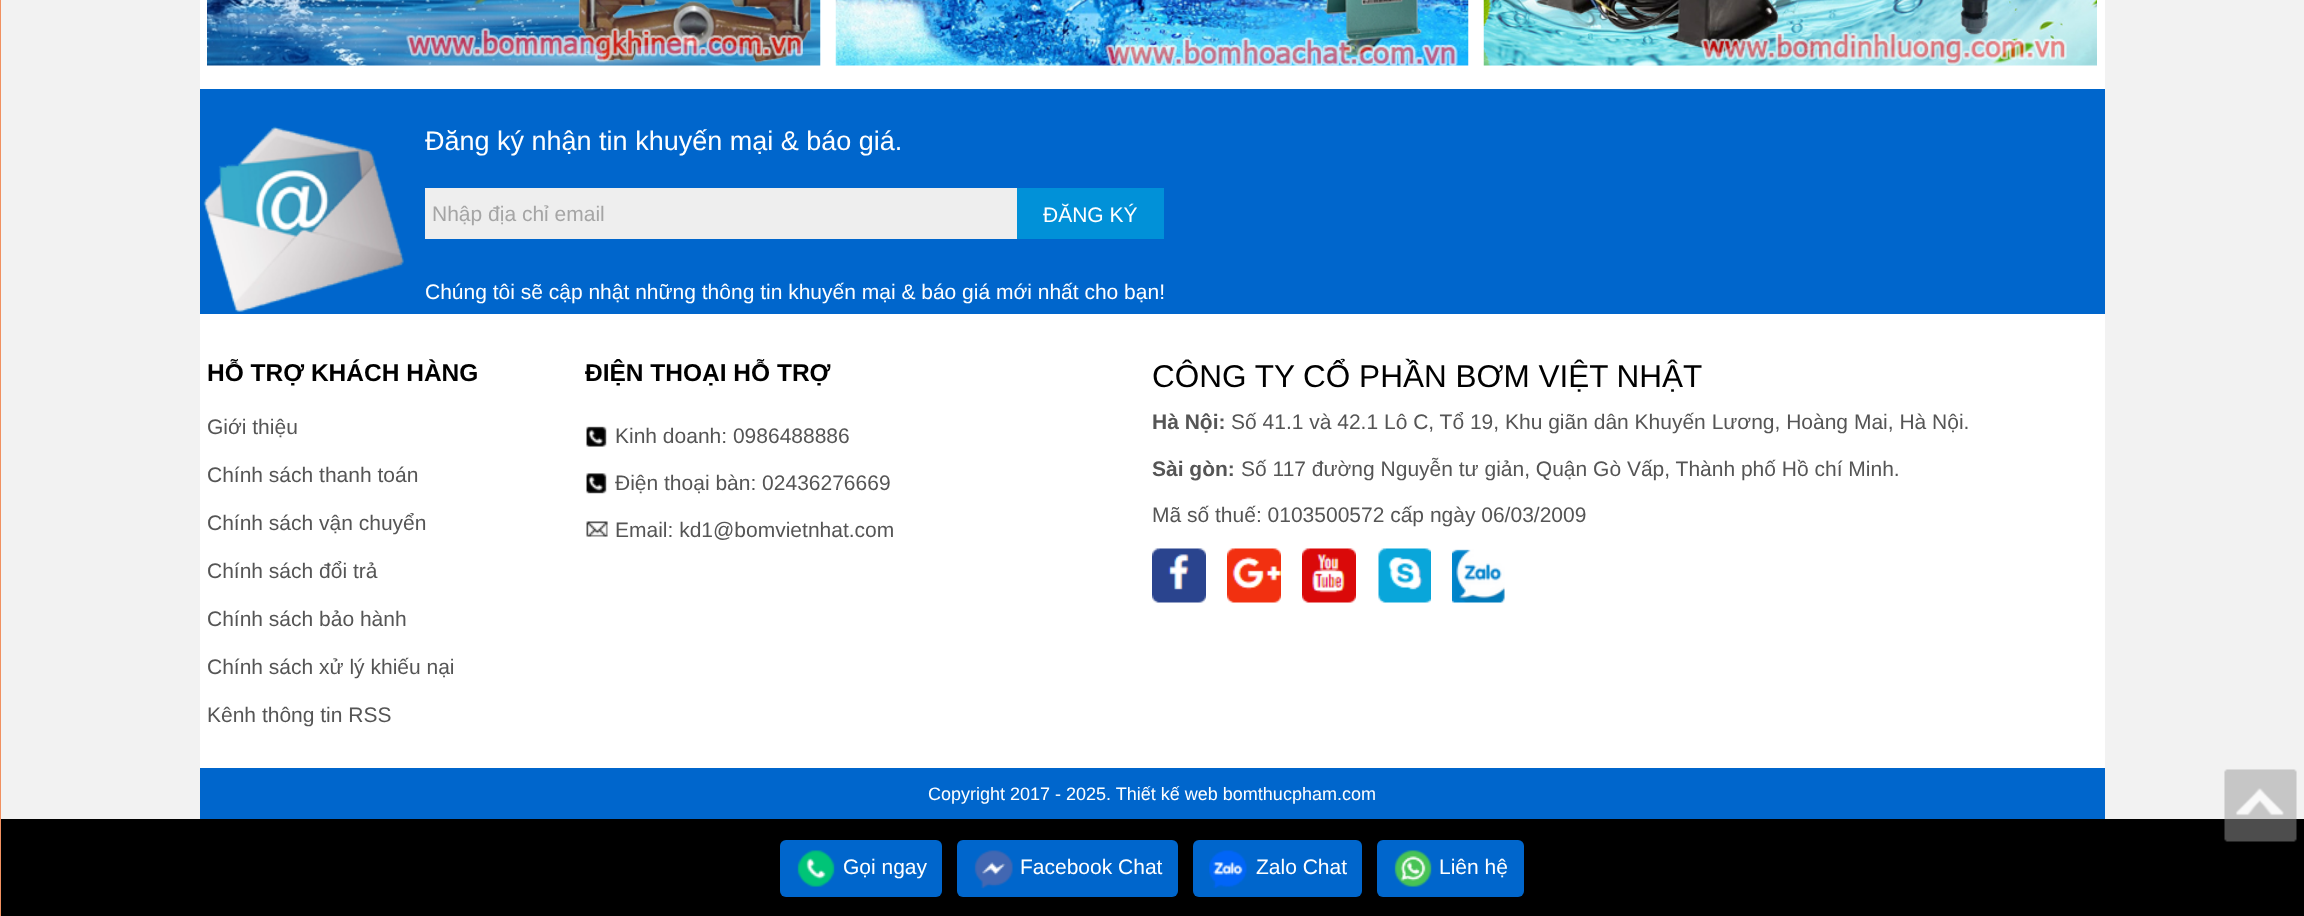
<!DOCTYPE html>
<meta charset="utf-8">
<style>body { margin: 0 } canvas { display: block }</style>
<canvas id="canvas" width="2304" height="916"></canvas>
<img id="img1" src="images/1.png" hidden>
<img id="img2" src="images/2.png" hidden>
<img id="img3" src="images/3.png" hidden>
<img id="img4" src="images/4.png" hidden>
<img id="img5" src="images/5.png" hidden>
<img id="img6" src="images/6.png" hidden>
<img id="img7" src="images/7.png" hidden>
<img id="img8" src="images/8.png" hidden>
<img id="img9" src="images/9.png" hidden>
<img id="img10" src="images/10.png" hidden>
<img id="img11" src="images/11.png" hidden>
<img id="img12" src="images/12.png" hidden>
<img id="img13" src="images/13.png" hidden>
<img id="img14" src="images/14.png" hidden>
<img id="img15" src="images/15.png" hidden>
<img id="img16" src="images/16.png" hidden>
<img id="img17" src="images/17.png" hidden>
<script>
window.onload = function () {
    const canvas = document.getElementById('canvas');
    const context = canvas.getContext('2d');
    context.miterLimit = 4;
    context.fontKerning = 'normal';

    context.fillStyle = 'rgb(242, 242, 242)';
    context.fillRect(0, 0, 2304, 916);
    context.fillStyle = 'rgb(241, 144, 96)';
    context.fillRect(0, 0, 1, 916);
    context.fillStyle = 'rgb(255, 255, 255)';
    context.fillRect(200, 0, 1905, 89);
    context.drawImage(document.getElementById('img1'), 207, 0, 614, 66);
    context.drawImage(document.getElementById('img2'), 835, 0, 634, 66);
    context.drawImage(document.getElementById('img3'), 1483, 0, 614, 66);
    context.fillStyle = 'rgb(0, 102, 204)';
    context.fillRect(200, 89, 1905, 225);
    context.drawImage(document.getElementById('img4'), 203, 126, 201, 186);
    context.fillStyle = 'rgb(238, 238, 238)';
    context.fillRect(425, 188, 592, 51);
    context.fillStyle = 'rgb(1, 145, 216)';
    context.fillRect(1017, 188, 147, 51);
    context.fillStyle = 'rgb(255, 255, 255)';
    context.fillRect(200, 314, 1905, 454);
    context.drawImage(document.getElementById('img5'), 586, 426, 21, 21);
    context.drawImage(document.getElementById('img6'), 586, 473, 21, 21);
    context.drawImage(document.getElementById('img7'), 586, 521, 22, 16);
    context.drawImage(document.getElementById('img8'), 1152, 548, 54, 55);
    context.drawImage(document.getElementById('img9'), 1227, 548, 54, 55);
    context.drawImage(document.getElementById('img10'), 1302, 548, 54, 55);
    context.drawImage(document.getElementById('img11'), 1378, 548, 53, 55);
    context.drawImage(document.getElementById('img12'), 1452, 549, 53, 54);
    context.fillStyle = 'rgb(0, 102, 204)';
    context.fillRect(200, 768, 1905, 51);
    context.fillStyle = 'rgb(0, 0, 0)';
    context.fillRect(1, 819, 2303, 97);
    context.drawImage(document.getElementById('img13'), 2224, 769, 73, 73);
    context.fillStyle = 'rgb(0, 102, 204)';
    context.beginPath();
    context.roundRect(780, 840, 162, 57, 6);
    context.fill();
    context.drawImage(document.getElementById('img14'), 797, 850, 38, 37);
    context.beginPath();
    context.roundRect(957, 840, 221, 57, 6);
    context.fill();
    context.drawImage(document.getElementById('img15'), 974, 850, 39, 39);
    context.beginPath();
    context.roundRect(1193, 840, 169, 57, 6);
    context.fill();
    context.drawImage(document.getElementById('img16'), 1209, 850, 38, 39);
    context.beginPath();
    context.roundRect(1377, 840, 147, 57, 6);
    context.fill();
    context.drawImage(document.getElementById('img17'), 1394, 850, 38, 37);
    context.font = '27px Liberation Sans';
    context.fillStyle = 'rgb(255, 255, 255)';
    context.fillText('Đăng ký nhận tin khuyến mại & báo giá.', 425, 150);
    context.font = '21px Liberation Sans';
    context.fillStyle = 'rgb(165, 165, 165)';
    context.fillText('Nhập địa chỉ email', 432, 221);
    context.fillStyle = 'rgb(255, 255, 255)';
    context.fillText('ĐĂNG KÝ', 1043, 222);
    context.fillText('Chúng tôi sẽ cập nhật những thông tin khuyến mại & báo giá mới nhất cho bạn!', 425, 299);
    context.font = 'bold 24.5px Liberation Sans';
    context.fillStyle = 'rgb(0, 0, 0)';
    context.fillText('HỖ TRỢ KHÁCH HÀNG', 207, 381);
    context.font = '21px Liberation Sans';
    context.fillStyle = 'rgb(85, 85, 85)';
    context.fillText('Giới thiệu', 207, 434);
    context.fillText('Chính sách thanh toán', 207, 482);
    context.fillText('Chính sách vận chuyển', 207, 530);
    context.fillText('Chính sách đổi trả', 207, 578);
    context.fillText('Chính sách bảo hành', 207, 626);
    context.fillText('Chính sách xử lý khiếu nại', 207, 674);
    context.fillText('Kênh thông tin RSS', 207, 722);
    context.font = 'bold 24.5px Liberation Sans';
    context.fillStyle = 'rgb(0, 0, 0)';
    context.fillText('ĐIỆN THOẠI HỖ TRỢ', 585, 381);
    context.font = '21px Liberation Sans';
    context.fillStyle = 'rgb(85, 85, 85)';
    context.fillText('Kinh doanh: 0986488886', 615, 443);
    context.fillText('Điện thoại bàn: 02436276669', 615, 490);
    context.fillText('Email: kd1@bomvietnhat.com', 615, 537);
    context.font = '31.5px Liberation Sans';
    context.fillStyle = 'rgb(0, 0, 0)';
    context.fillText('CÔNG TY CỔ PHẦN BƠM VIỆT NHẬT', 1152, 387);
    context.font = 'bold 21px Liberation Sans';
    context.fillStyle = 'rgb(85, 85, 85)';
    context.fillText('Hà Nội:', 1152, 429);
    context.font = '21px Liberation Sans';
    context.fillText('Số 41.1 và 42.1 Lô C, Tổ 19, Khu giãn dân Khuyến Lương, Hoàng Mai, Hà Nội.', 1231, 429);
    context.font = 'bold 21px Liberation Sans';
    context.fillText('Sài gòn:', 1152, 476);
    context.font = '21px Liberation Sans';
    context.fillText('Số 117 đường Nguyễn tư giản, Quận Gò Vấp, Thành phố Hồ chí Minh.', 1241, 476);
    context.fillText('Mã số thuế: 0103500572 cấp ngày 06/03/2009', 1152, 522);
    context.font = '18px Liberation Sans';
    context.fillStyle = 'rgb(255, 255, 255)';
    context.fillText('Copyright 2017 - 2025. Thiết kế web bomthucpham.com', 928, 800);
    context.font = '21px Liberation Sans';
    context.fillText('Gọi ngay', 843, 874);
    context.fillText('Facebook Chat', 1020, 874);
    context.fillText('Zalo Chat', 1256, 874);
    context.fillText('Liên hệ', 1439, 874);
};
</script>
